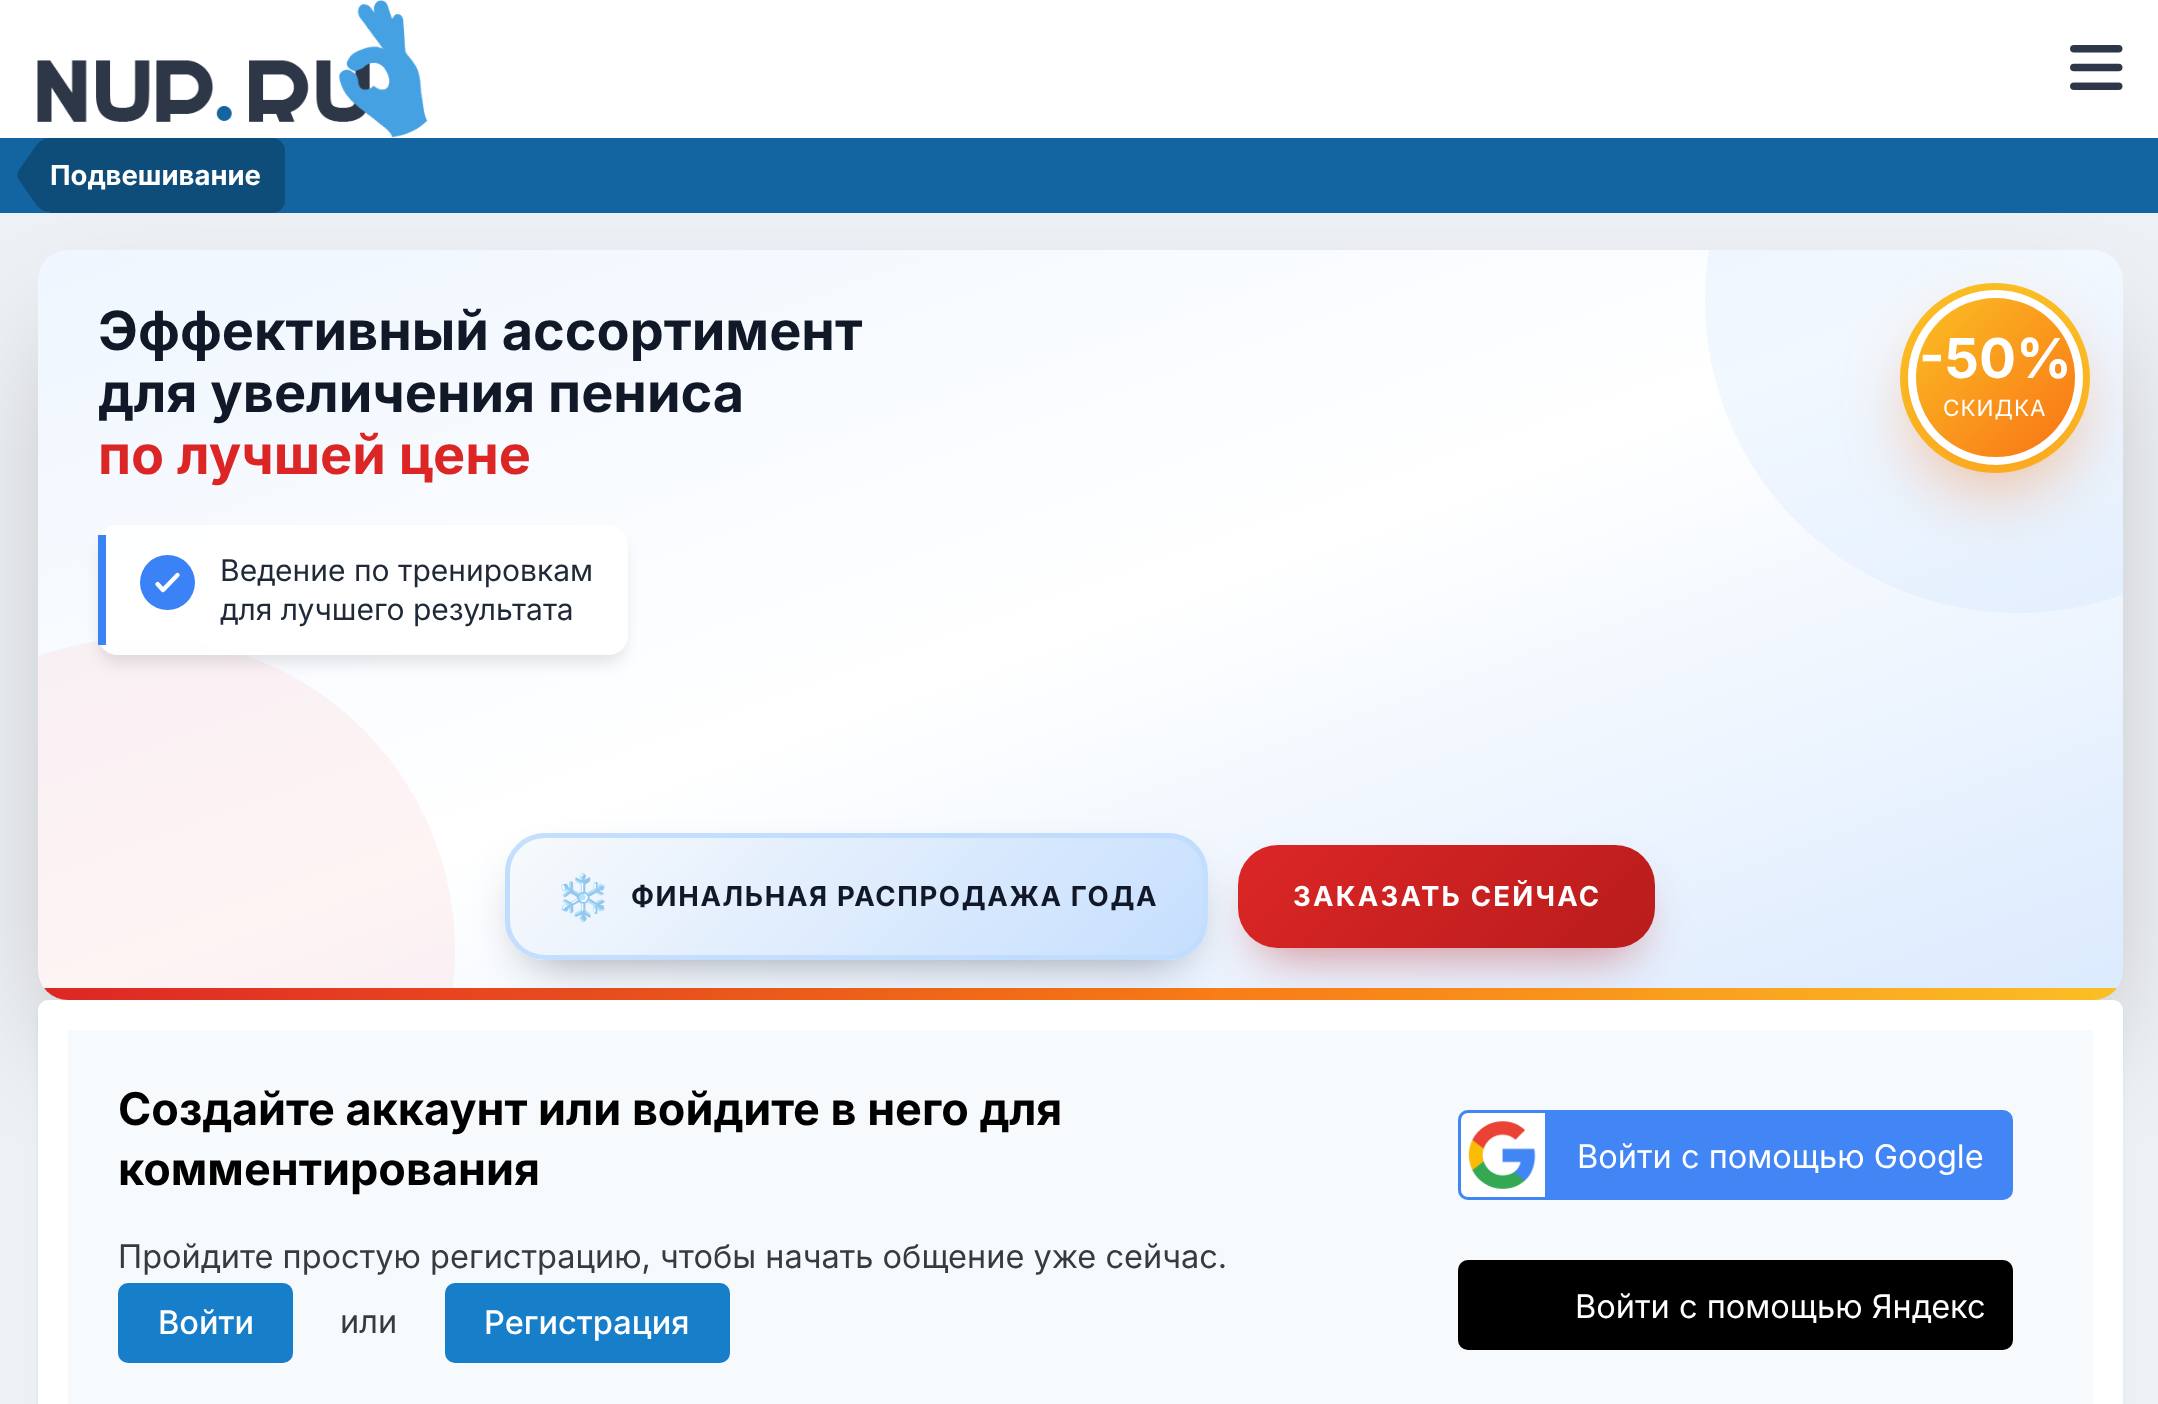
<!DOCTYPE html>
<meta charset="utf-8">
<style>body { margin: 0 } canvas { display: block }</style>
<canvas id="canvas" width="2158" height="1404"></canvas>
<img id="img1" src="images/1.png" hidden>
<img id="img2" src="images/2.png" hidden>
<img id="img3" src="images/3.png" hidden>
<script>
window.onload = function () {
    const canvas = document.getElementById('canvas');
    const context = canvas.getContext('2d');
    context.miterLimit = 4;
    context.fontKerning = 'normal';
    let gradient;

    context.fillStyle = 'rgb(237, 240, 244)';
    context.fillRect(0, 0, 2158, 1404);
    context.fillStyle = 'rgb(255, 255, 255)';
    context.fillRect(0, 0, 2158, 138);
    context.drawImage(document.getElementById('img1'), 37, 0, 391, 138);
    context.drawImage(document.getElementById('img2'), 2070, 45, 53, 45);
    context.fillStyle = 'rgb(18, 101, 161)';
    context.fillRect(0, 138, 2158, 75);
    context.fillStyle = 'rgb(14, 76, 121)';
    context.beginPath();
    context.roundRect(50, 138, 235, 75, [0, 13, 13, 0]);
    context.fill();
    context.beginPath();
    context.moveTo(50, 175);
    context.lineTo(50, 212);
    context.bezierCurveTo(44.5, 212, 39, 209, 35, 203);
    context.lineTo(19, 180);
    context.bezierCurveTo(18, 178.5, 17.5, 177, 17.5, 175);
    context.closePath();
    context.fill();
    context.beginPath();
    context.moveTo(50, 175);
    context.lineTo(17.5, 175);
    context.bezierCurveTo(17.5, 173, 18, 171.5, 19, 170);
    context.lineTo(35, 147);
    context.bezierCurveTo(39, 141, 44.5, 138, 50, 138);
    context.closePath();
    context.fill();
    context.fillStyle = 'rgba(0, 0, 0, 0.25)';
    context.filter = 'blur(62.5px)';
    context.beginPath();
    context.rect(68, 343, 2025, 690);
    context.fill();
    context.filter = 'none';
    gradient = context.createLinearGradient(841, -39, 1319, 1289);
    gradient.addColorStop(0, 'rgb(239, 246, 255)');
    gradient.addColorStop(0.5, 'rgb(255, 255, 255)');
    gradient.addColorStop(1, 'rgb(219, 234, 254)');
    context.fillStyle = gradient;
    context.beginPath();
    context.roundRect(38, 250, 2085, 750, 30);
    context.fill();
    context.save();
    context.beginPath();
    context.roundRect(38, 250, 2085, 750, 30);
    context.clip();
    context.fillStyle = 'rgba(191, 219, 254, 0.2)';
    context.beginPath();
    context.arc(2017.5, 300.5, 312.5, 0, 2 * Math.PI);
    context.fill();
    context.fillStyle = 'rgba(254, 202, 202, 0.2)';
    context.beginPath();
    context.arc(142.5, 950.5, 312.5, 0, 2 * Math.PI);
    context.fill();
    context.restore();
    context.save();
    context.beginPath();
    context.moveTo(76, 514);
    context.lineTo(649, 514);
    context.lineTo(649, 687);
    context.lineTo(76, 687);
    context.closePath();
    context.moveTo(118, 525);
    context.lineTo(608, 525);
    context.bezierCurveTo(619, 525, 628, 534, 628, 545);
    context.lineTo(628, 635);
    context.bezierCurveTo(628, 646, 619, 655, 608, 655);
    context.lineTo(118, 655);
    context.bezierCurveTo(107, 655, 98, 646, 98, 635);
    context.lineTo(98, 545);
    context.bezierCurveTo(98, 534, 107, 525, 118, 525);
    context.closePath();
    context.clip('evenodd');
    context.fillStyle = 'rgba(0, 0, 0, 0.1)';
    context.filter = 'blur(7.5px)';
    context.beginPath();
    context.roundRect(100, 538, 525, 125, 18);
    context.fill();
    context.filter = 'none';
    context.restore();
    context.fillStyle = 'rgba(255, 255, 255, 0.9)';
    context.beginPath();
    context.roundRect(98, 525, 530, 130, 20);
    context.fill();
    context.fillStyle = 'rgb(59, 130, 246)';
    context.fillRect(98, 535, 8, 110);
    context.beginPath();
    context.arc(167.5, 582.5, 27.5, 0, 2 * Math.PI);
    context.fill();
    context.beginPath();
    context.moveTo(157.5, 584);
    context.lineTo(163, 590);
    context.lineTo(177.5, 575);
    context.strokeStyle = 'rgb(255, 255, 255)';
    context.lineWidth = 4.4;
    context.lineCap = 'round';
    context.lineJoin = 'round';
    context.stroke();
    context.fillStyle = 'rgb(251, 191, 36)';
    context.beginPath();
    context.arc(1995, 378, 95, 0, 2 * Math.PI);
    context.fill();
    context.save();
    context.beginPath();
    context.roundRect(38, 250, 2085, 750, 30);
    context.clip();
    context.fillStyle = 'rgba(249, 115, 22, 0.5)';
    context.filter = 'blur(37.5px)';
    context.beginPath();
    context.roundRect(1920, 333, 150, 150, 75);
    context.fill();
    context.filter = 'none';
    context.restore();
    context.save();
    context.beginPath();
    context.roundRect(1908, 290, 175, 175, 87.5);
    context.clip();
    gradient = context.createLinearGradient(1915, 298, 2075, 458);
    gradient.addColorStop(0, 'rgb(251, 191, 36)');
    gradient.addColorStop(1, 'rgb(249, 115, 22)');
    context.fillStyle = gradient;
    context.fillRect(1915, 298, 160, 160);
    context.restore();
    context.beginPath();
    context.arc(1995.5, 377.5, 83.5, 0, 2 * Math.PI);
    context.lineWidth = 8;
    context.stroke();
    context.save();
    context.beginPath();
    context.roundRect(38, 250, 2085, 750, 30);
    context.clip();
    gradient = context.createLinearGradient(38, 994, 2123, 994);
    gradient.addColorStop(0, 'rgb(220, 38, 38)');
    gradient.addColorStop(0.5, 'rgb(249, 115, 22)');
    gradient.addColorStop(1, 'rgb(251, 191, 36)');
    context.fillStyle = gradient;
    context.fillRect(44, 988, 2073, 12);
    context.restore();
    context.fillStyle = 'rgba(45, 55, 72, 0.1)';
    context.filter = 'blur(5px)';
    context.beginPath();
    context.roundRect(40, 1008, 2080, 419, 8);
    context.fill();
    context.filter = 'none';
    context.fillStyle = 'rgb(255, 255, 255)';
    context.beginPath();
    context.roundRect(38, 1000, 2085, 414, 10);
    context.fill();
    context.fillStyle = 'rgba(185, 28, 28, 0.5)';
    context.filter = 'blur(25px)';
    context.beginPath();
    context.roundRect(1258, 890, 377, 63, 20);
    context.fill();
    context.filter = 'none';
    gradient = context.createLinearGradient(1316, 766, 1576, 1026);
    gradient.addColorStop(0, 'rgb(220, 38, 38)');
    gradient.addColorStop(1, 'rgb(185, 28, 28)');
    context.fillStyle = gradient;
    context.beginPath();
    context.roundRect(1238, 845, 417, 103, 40);
    context.fill();
    context.fillStyle = 'rgb(247, 250, 252)';
    context.fillRect(68, 1030, 2025, 374);
    context.save();
    context.beginPath();
    context.roundRect(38, 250, 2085, 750, 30);
    context.clip();
    context.beginPath();
    context.moveTo(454, 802);
    context.lineTo(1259, 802);
    context.lineTo(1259, 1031);
    context.lineTo(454, 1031);
    context.closePath();
    context.moveTo(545, 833);
    context.lineTo(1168, 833);
    context.bezierCurveTo(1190, 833, 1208, 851, 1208, 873);
    context.lineTo(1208, 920);
    context.bezierCurveTo(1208, 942, 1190, 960, 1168, 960);
    context.lineTo(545, 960);
    context.bezierCurveTo(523, 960, 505, 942, 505, 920);
    context.lineTo(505, 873);
    context.bezierCurveTo(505, 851, 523, 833, 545, 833);
    context.closePath();
    context.clip('evenodd');
    context.fillStyle = 'rgba(15, 23, 42, 0.5)';
    context.filter = 'blur(25px)';
    context.beginPath();
    context.roundRect(530, 878, 653, 77, 15);
    context.fill();
    context.filter = 'none';
    context.restore();
    context.save();
    context.beginPath();
    context.roundRect(505, 833, 703, 127, 40);
    context.clip();
    gradient = context.createLinearGradient(653, 576, 1058, 981);
    gradient.addColorStop(0, 'rgba(248, 250, 252, 0.95)');
    gradient.addColorStop(1, 'rgba(191, 219, 254, 0.85)');
    context.fillStyle = gradient;
    context.fillRect(525, 833, 663, 5);
    gradient = context.createLinearGradient(-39, 694, 366, 1099);
    gradient.addColorStop(0, 'rgba(248, 250, 252, 0.95)');
    gradient.addColorStop(1, 'rgba(191, 219, 254, 0.85)');
    context.fillStyle = gradient;
    context.fillRect(505, 853, 5, 87);
    gradient = context.createLinearGradient(653, 694, 1058, 1099);
    gradient.addColorStop(0, 'rgba(248, 250, 252, 0.95)');
    gradient.addColorStop(1, 'rgba(191, 219, 254, 0.85)');
    context.fillStyle = gradient;
    context.fillRect(510, 838, 693, 117);
    gradient = context.createLinearGradient(1346, 694, 1751, 1099);
    gradient.addColorStop(0, 'rgba(248, 250, 252, 0.95)');
    gradient.addColorStop(1, 'rgba(191, 219, 254, 0.85)');
    context.fillStyle = gradient;
    context.fillRect(1203, 853, 5, 87);
    gradient = context.createLinearGradient(653, 811, 1058, 1216);
    gradient.addColorStop(0, 'rgba(248, 250, 252, 0.95)');
    gradient.addColorStop(1, 'rgba(191, 219, 254, 0.85)');
    context.fillStyle = gradient;
    context.fillRect(525, 955, 663, 5);
    context.restore();
    context.beginPath();
    context.roundRect(507.5, 835.5, 698, 122, 37.5);
    context.strokeStyle = 'rgba(191, 219, 254, 0.9)';
    context.lineWidth = 5;
    context.lineJoin = 'miter';
    context.stroke();
    context.fillStyle = 'rgb(23, 126, 201)';
    context.beginPath();
    context.roundRect(118, 1283, 175, 80, 10);
    context.fill();
    context.beginPath();
    context.roundRect(445, 1283, 285, 80, 10);
    context.fill();
    context.fillStyle = 'rgb(66, 133, 244)';
    context.beginPath();
    context.roundRect(1458, 1110, 555, 90, 10);
    context.fill();
    context.fillStyle = 'rgb(255, 255, 255)';
    context.beginPath();
    context.roundRect(1458, 1110, 90, 90, [10, 0, 0, 10]);
    context.fill();
    context.drawImage(document.getElementById('img3'), 1468, 1121, 68, 68);
    context.beginPath();
    context.roundRect(1459.5, 1111.5, 87, 87, [8.5, 0, 0, 8.5]);
    context.strokeStyle = 'rgb(66, 133, 244)';
    context.lineWidth = 3;
    context.stroke();
    context.fillStyle = 'rgb(0, 0, 0)';
    context.beginPath();
    context.roundRect(1458, 1260, 555, 90, 10);
    context.fill();
    context.fillStyle = 'rgba(0, 0, 0, 0.2)';
    context.beginPath();
    context.roundRect(1458, 1260, 90, 90, [10, 0, 0, 10]);
    context.fill();
    context.font = 'bold 27.5px Inter';
    context.fillStyle = 'rgb(255, 255, 255)';
    context.fillText('Подвешивание', 50, 185);
    context.font = 'bold 54px Inter';
    context.fillStyle = 'rgb(17, 24, 39)';
    context.fillText('Эффективный ассортимент', 98, 350);
    context.fillText('для увеличения пениса', 98, 412);
    context.fillStyle = 'rgb(220, 38, 38)';
    context.fillText('по лучшей цене', 98, 474);
    context.font = '30px Inter';
    context.fillStyle = 'rgb(31, 41, 55)';
    context.fillText('Ведение по тренировкам', 220, 581);
    context.fillText('для лучшего результата', 220, 620);
    context.font = 'bold 55px Inter';
    context.fillStyle = 'rgb(255, 255, 255)';
    context.fillText('-50%', 1919, 378);
    context.letterSpacing = '1px';
    context.font = '22.5px Inter';
    context.fillText('СКИДКА', 1943, 416);
    context.letterSpacing = '0px';
    context.font = '45px Noto Color Emoji';
    context.fillStyle = 'rgb(17, 24, 39)';
    context.fillText('❄️', 555, 913);
    context.letterSpacing = '1.65px';
    context.font = 'bold 27.5px Inter';
    context.fillText('ФИНАЛЬНАЯ РАСПРОДАЖА ГОДА', 631, 906);
    context.letterSpacing = '2.25px';
    context.fillStyle = 'rgb(255, 255, 255)';
    context.fillText('ЗАКАЗАТЬ СЕЙЧАС', 1293, 906);
    context.letterSpacing = '0px';
    context.font = 'bold 45px Inter';
    context.fillStyle = 'rgb(0, 0, 0)';
    context.fillText('Создайте аккаунт или войдите в него для', 118, 1125);
    context.fillText('комментирования', 118, 1185);
    context.font = '32.5px Inter';
    context.fillStyle = 'rgb(53, 60, 65)';
    context.fillText('Пройдите простую регистрацию, чтобы начать общение уже сейчас.', 118, 1268);
    context.font = '500 32.5px Inter';
    context.fillStyle = 'rgb(255, 255, 255)';
    context.fillText('Войти', 158, 1334);
    context.font = '32.5px Inter';
    context.fillStyle = 'rgb(53, 60, 65)';
    context.fillText('или', 340, 1333);
    context.font = '500 32.5px Inter';
    context.fillStyle = 'rgb(255, 255, 255)';
    context.fillText('Регистрация', 484, 1334);
    context.font = '32.5px Inter';
    context.fillText('Войти с помощью Google', 1577, 1168);
    context.fillText('Войти с помощью Яндекс', 1575, 1318);
};
</script>
